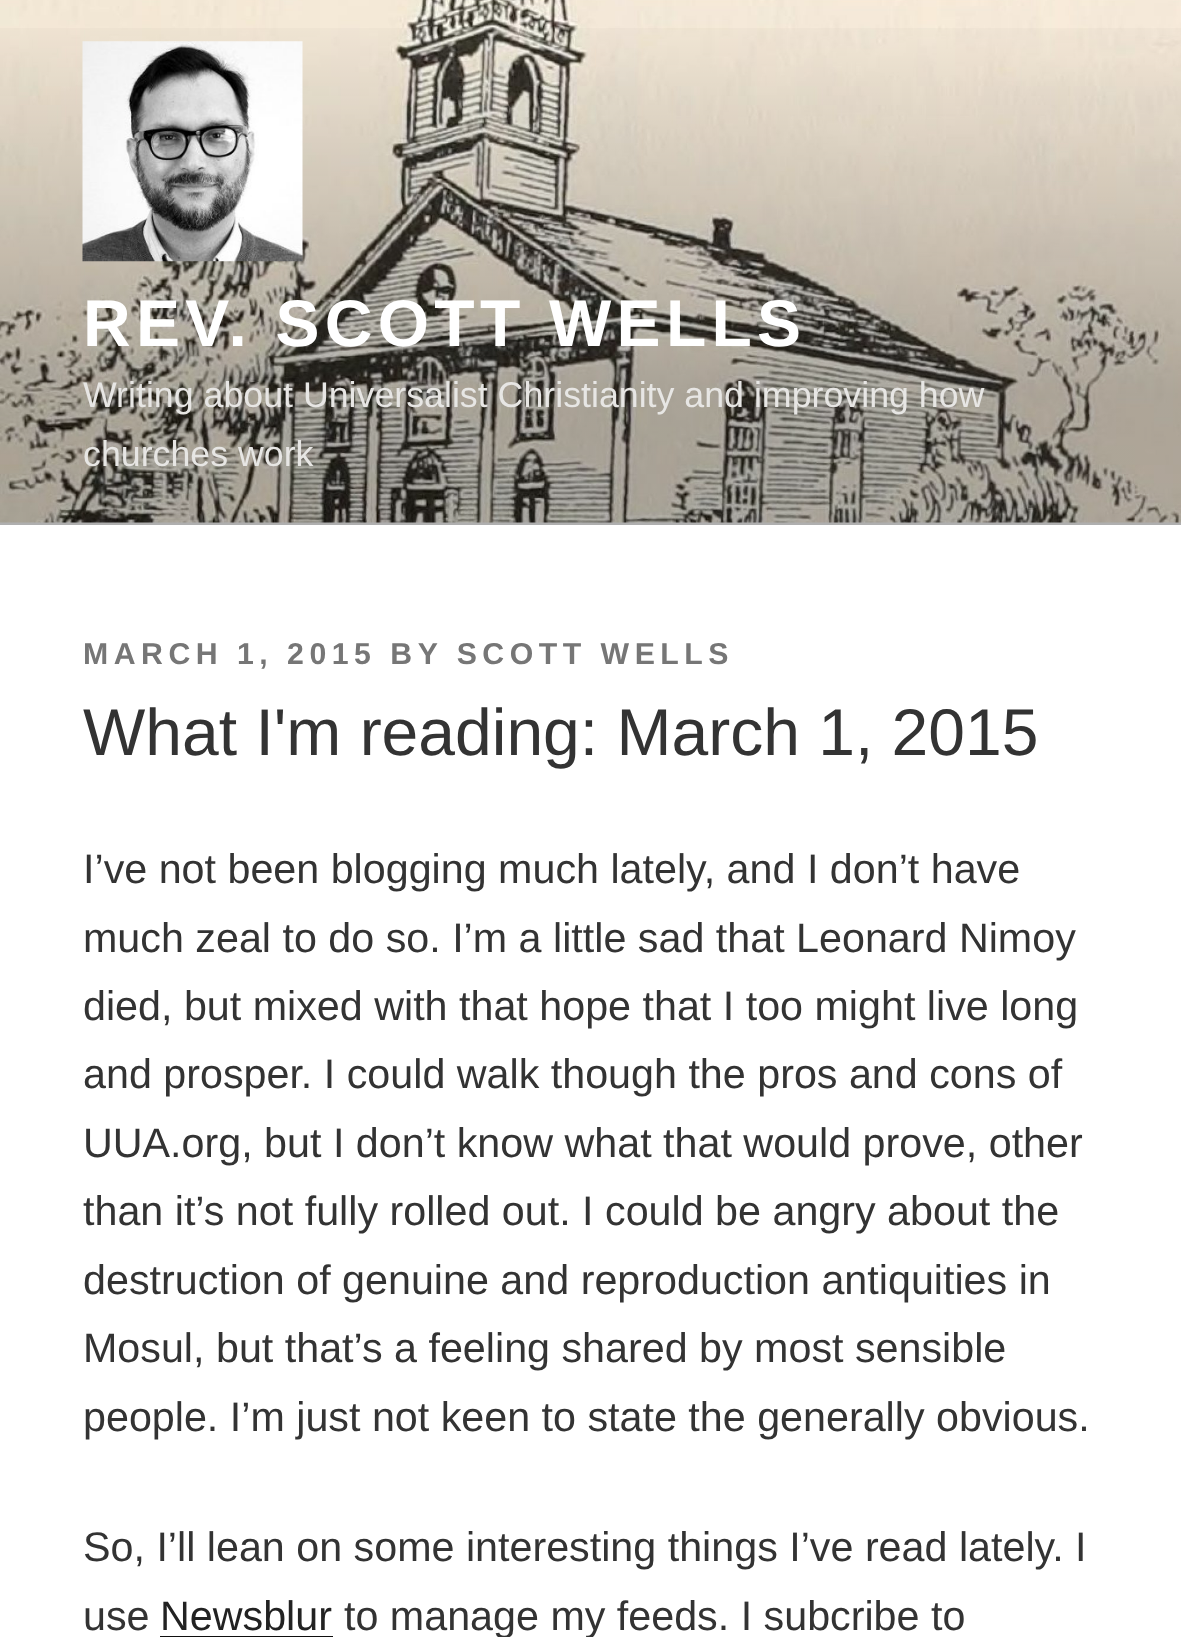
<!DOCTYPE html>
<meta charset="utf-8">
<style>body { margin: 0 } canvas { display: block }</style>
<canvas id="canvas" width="1181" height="1637"></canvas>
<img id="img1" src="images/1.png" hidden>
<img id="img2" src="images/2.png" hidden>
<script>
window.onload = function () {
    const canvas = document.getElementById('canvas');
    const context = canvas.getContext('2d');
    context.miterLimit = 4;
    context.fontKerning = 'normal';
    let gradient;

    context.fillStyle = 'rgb(255, 255, 255)';
    context.fillRect(0, 0, 1181, 1637);
    context.fillStyle = 'rgb(250, 250, 250)';
    context.fillRect(0, 522, 1181, 3);
    context.drawImage(document.getElementById('img1'), 0, 0, 1181, 523);
    gradient = context.createLinearGradient(591, 0, 591, 525);
    gradient.addColorStop(0, 'rgba(0, 0, 0, 0)');
    gradient.addColorStop(0.75, 'rgba(0, 0, 0, 0.3)');
    gradient.addColorStop(1, 'rgba(0, 0, 0, 0.3)');
    context.fillStyle = gradient;
    context.fillRect(0, 28, 1181, 497);
    context.drawImage(document.getElementById('img2'), 82, 41, 221, 221);
    context.fillStyle = 'rgb(15, 15, 15)';
    context.fillRect(160, 1636, 173, 1);
    context.letterSpacing = '5.25px';
    context.font = 'bold 66px Liberation Sans';
    context.fillStyle = 'rgb(255, 255, 255)';
    context.fillText('REV. SCOTT WELLS', 83, 346);
    context.letterSpacing = '0px';
    context.font = '35.75px Liberation Sans';
    context.fillStyle = 'rgb(231, 230, 228)';
    context.fillText('Writing about Universalist Christianity and improving how', 83, 407);
    context.fillText('churches work', 83, 466);
    context.letterSpacing = '5.5px';
    context.font = 'bold 30.25px Liberation Sans';
    context.fillStyle = 'rgb(118, 118, 118)';
    context.fillText('MARCH 1, 2015 BY SCOTT WELLS', 83, 664);
    context.letterSpacing = '0px';
    context.font = '66px Liberation Sans';
    context.fillStyle = 'rgb(51, 51, 51)';
    context.fillText('What I\'m reading: March 1, 2015', 83, 755);
    context.font = '41.25px Liberation Sans';
    context.fillText('I’ve not been blogging much lately, and I don’t have', 83, 883);
    context.fillText('much zeal to do so. I’m a little sad that Leonard Nimoy', 83, 952);
    context.fillText('died, but mixed with that hope that I too might live long', 83, 1020);
    context.fillText('and prosper. I could walk though the pros and cons of', 83, 1088);
    context.fillText('UUA.org, but I don’t know what that would prove, other', 83, 1157);
    context.fillText('than it’s not fully rolled out. I could be angry about the', 83, 1225);
    context.fillText('destruction of genuine and reproduction antiquities in', 83, 1294);
    context.fillText('Mosul, but that’s a feeling shared by most sensible', 83, 1362);
    context.fillText('people. I’m just not keen to state the generally obvious.', 83, 1431);
    context.fillText('So, I’ll lean on some interesting things I’ve read lately. I', 83, 1561);
    context.fillText('use', 83, 1630);
    context.fillStyle = 'rgb(34, 34, 34)';
    context.fillText('Newsblur', 160, 1630);
    context.fillStyle = 'rgb(51, 51, 51)';
    context.fillText('to manage my feeds. I subcribe to', 344, 1630);
};
</script>
